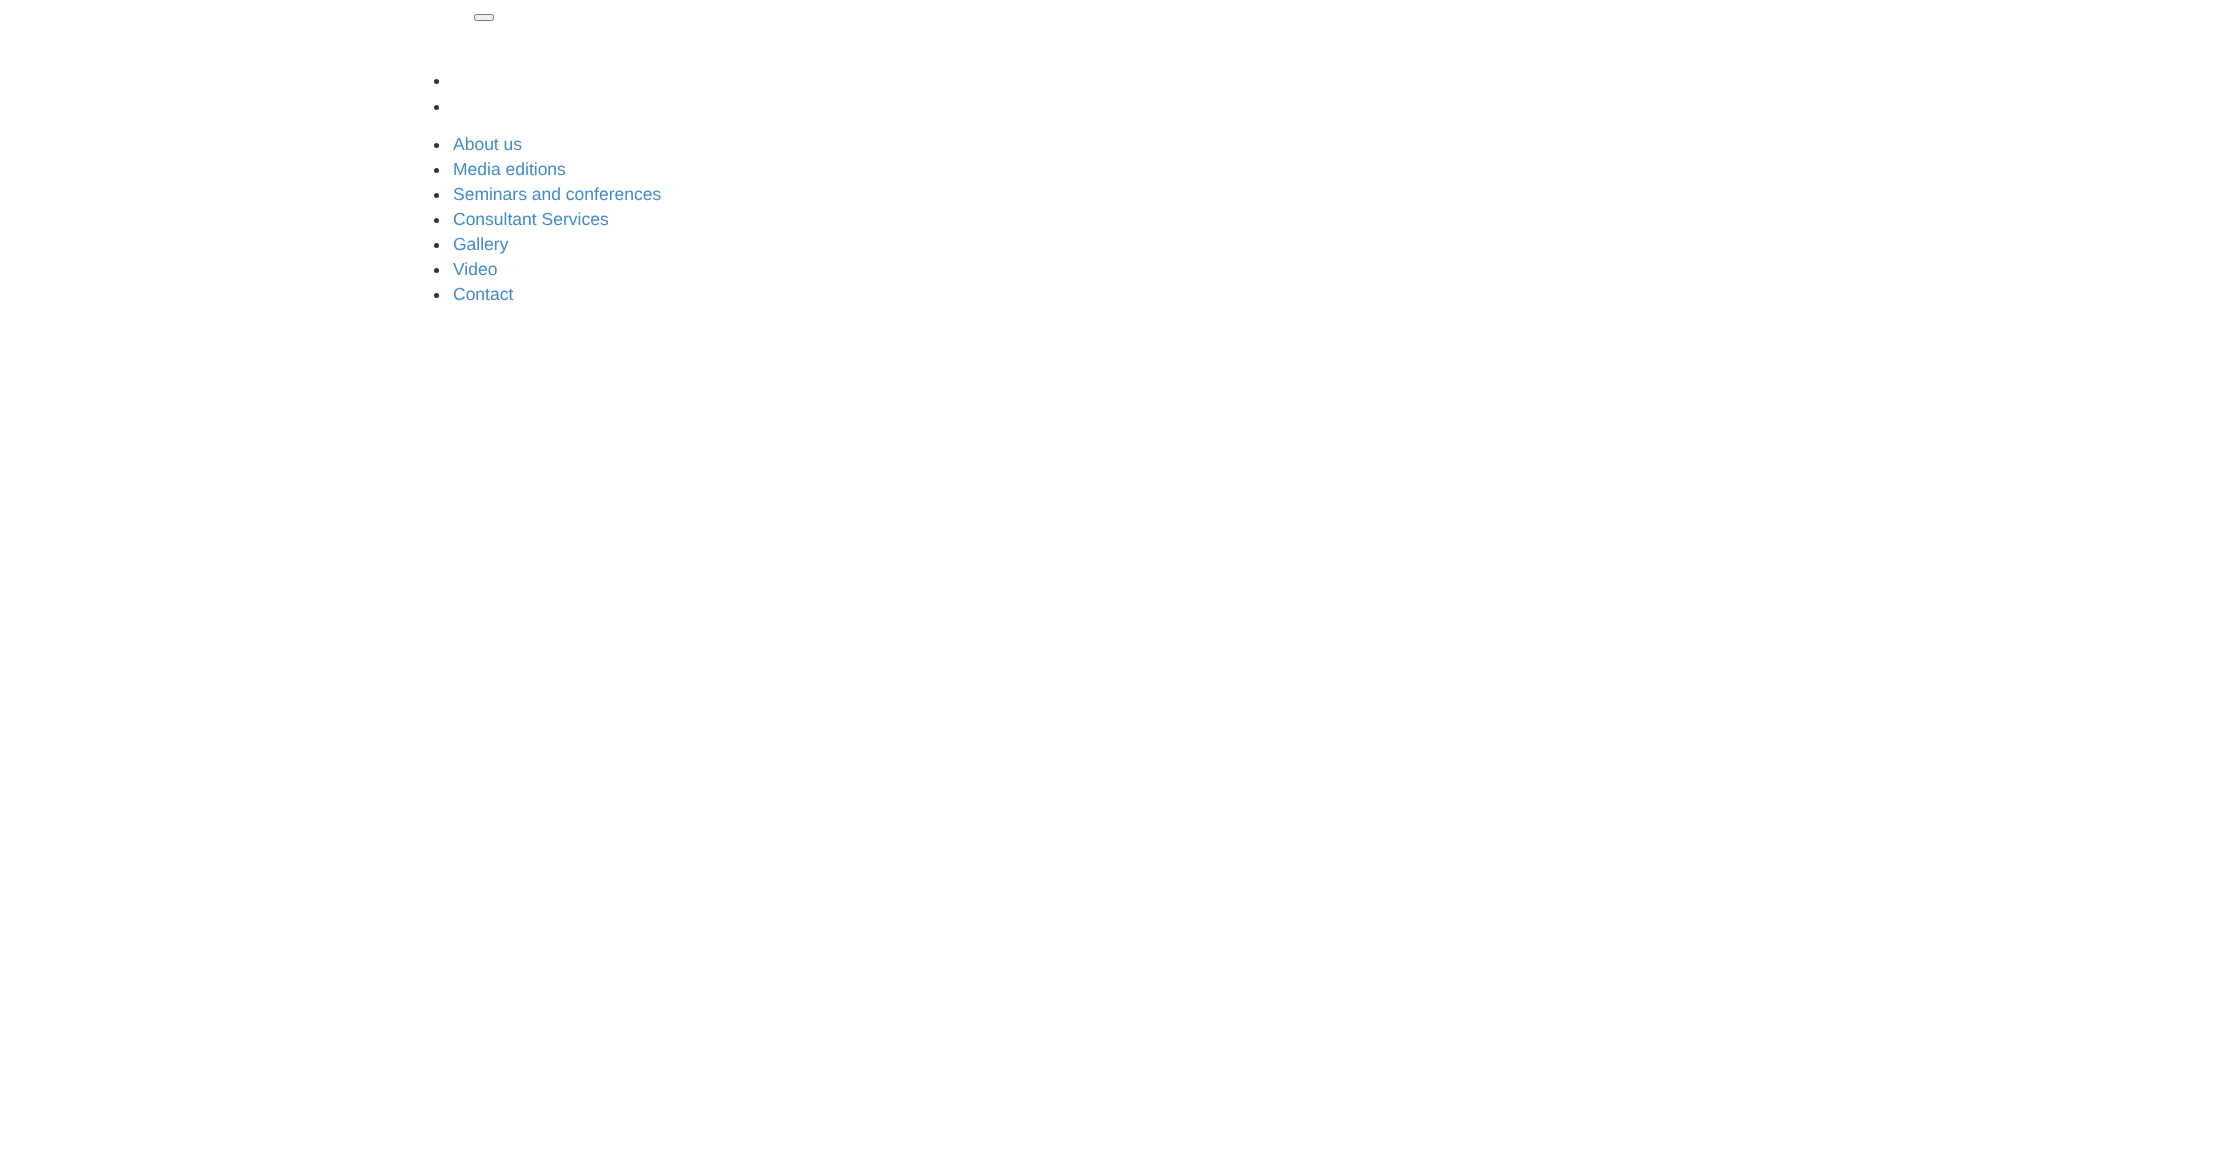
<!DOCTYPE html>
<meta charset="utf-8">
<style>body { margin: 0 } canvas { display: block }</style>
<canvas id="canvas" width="2230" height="1170"></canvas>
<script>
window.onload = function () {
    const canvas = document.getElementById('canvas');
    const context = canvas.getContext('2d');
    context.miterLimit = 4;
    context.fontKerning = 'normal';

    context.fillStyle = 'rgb(255, 255, 255)';
    context.fillRect(0, 0, 2230, 1170);
    context.fillStyle = 'rgb(239, 239, 239)';
    context.beginPath();
    context.roundRect(474.5, 14.5, 19, 6, 2);
    context.fill();
    context.strokeStyle = 'rgb(118, 118, 118)';
    context.stroke();
    context.fillStyle = 'rgb(51, 51, 51)';
    context.beginPath();
    context.arc(436.5, 81.5, 2.5, 0, 2 * Math.PI);
    context.fill();
    context.beginPath();
    context.arc(436.5, 107.5, 2.5, 0, 2 * Math.PI);
    context.fill();
    context.beginPath();
    context.arc(436.5, 145.5, 2.5, 0, 2 * Math.PI);
    context.fill();
    context.beginPath();
    context.arc(436.5, 170.5, 2.5, 0, 2 * Math.PI);
    context.fill();
    context.beginPath();
    context.arc(436.5, 195.5, 2.5, 0, 2 * Math.PI);
    context.fill();
    context.beginPath();
    context.arc(436.5, 220.5, 2.5, 0, 2 * Math.PI);
    context.fill();
    context.beginPath();
    context.arc(436.5, 245.5, 2.5, 0, 2 * Math.PI);
    context.fill();
    context.beginPath();
    context.arc(436.5, 270.5, 2.5, 0, 2 * Math.PI);
    context.fill();
    context.beginPath();
    context.arc(436.5, 295.5, 2.5, 0, 2 * Math.PI);
    context.fill();
    context.font = '17.5px Liberation Sans';
    context.fillStyle = 'rgb(66, 139, 202)';
    context.fillText('About us', 453, 150);
    context.fillText('Media editions', 453, 175);
    context.fillText('Seminars and conferences', 453, 200);
    context.fillText('Consultant Services', 453, 225);
    context.fillText('Gallery', 453, 250);
    context.fillText('Video', 453, 275);
    context.fillText('Contact', 453, 300);
};
</script>
